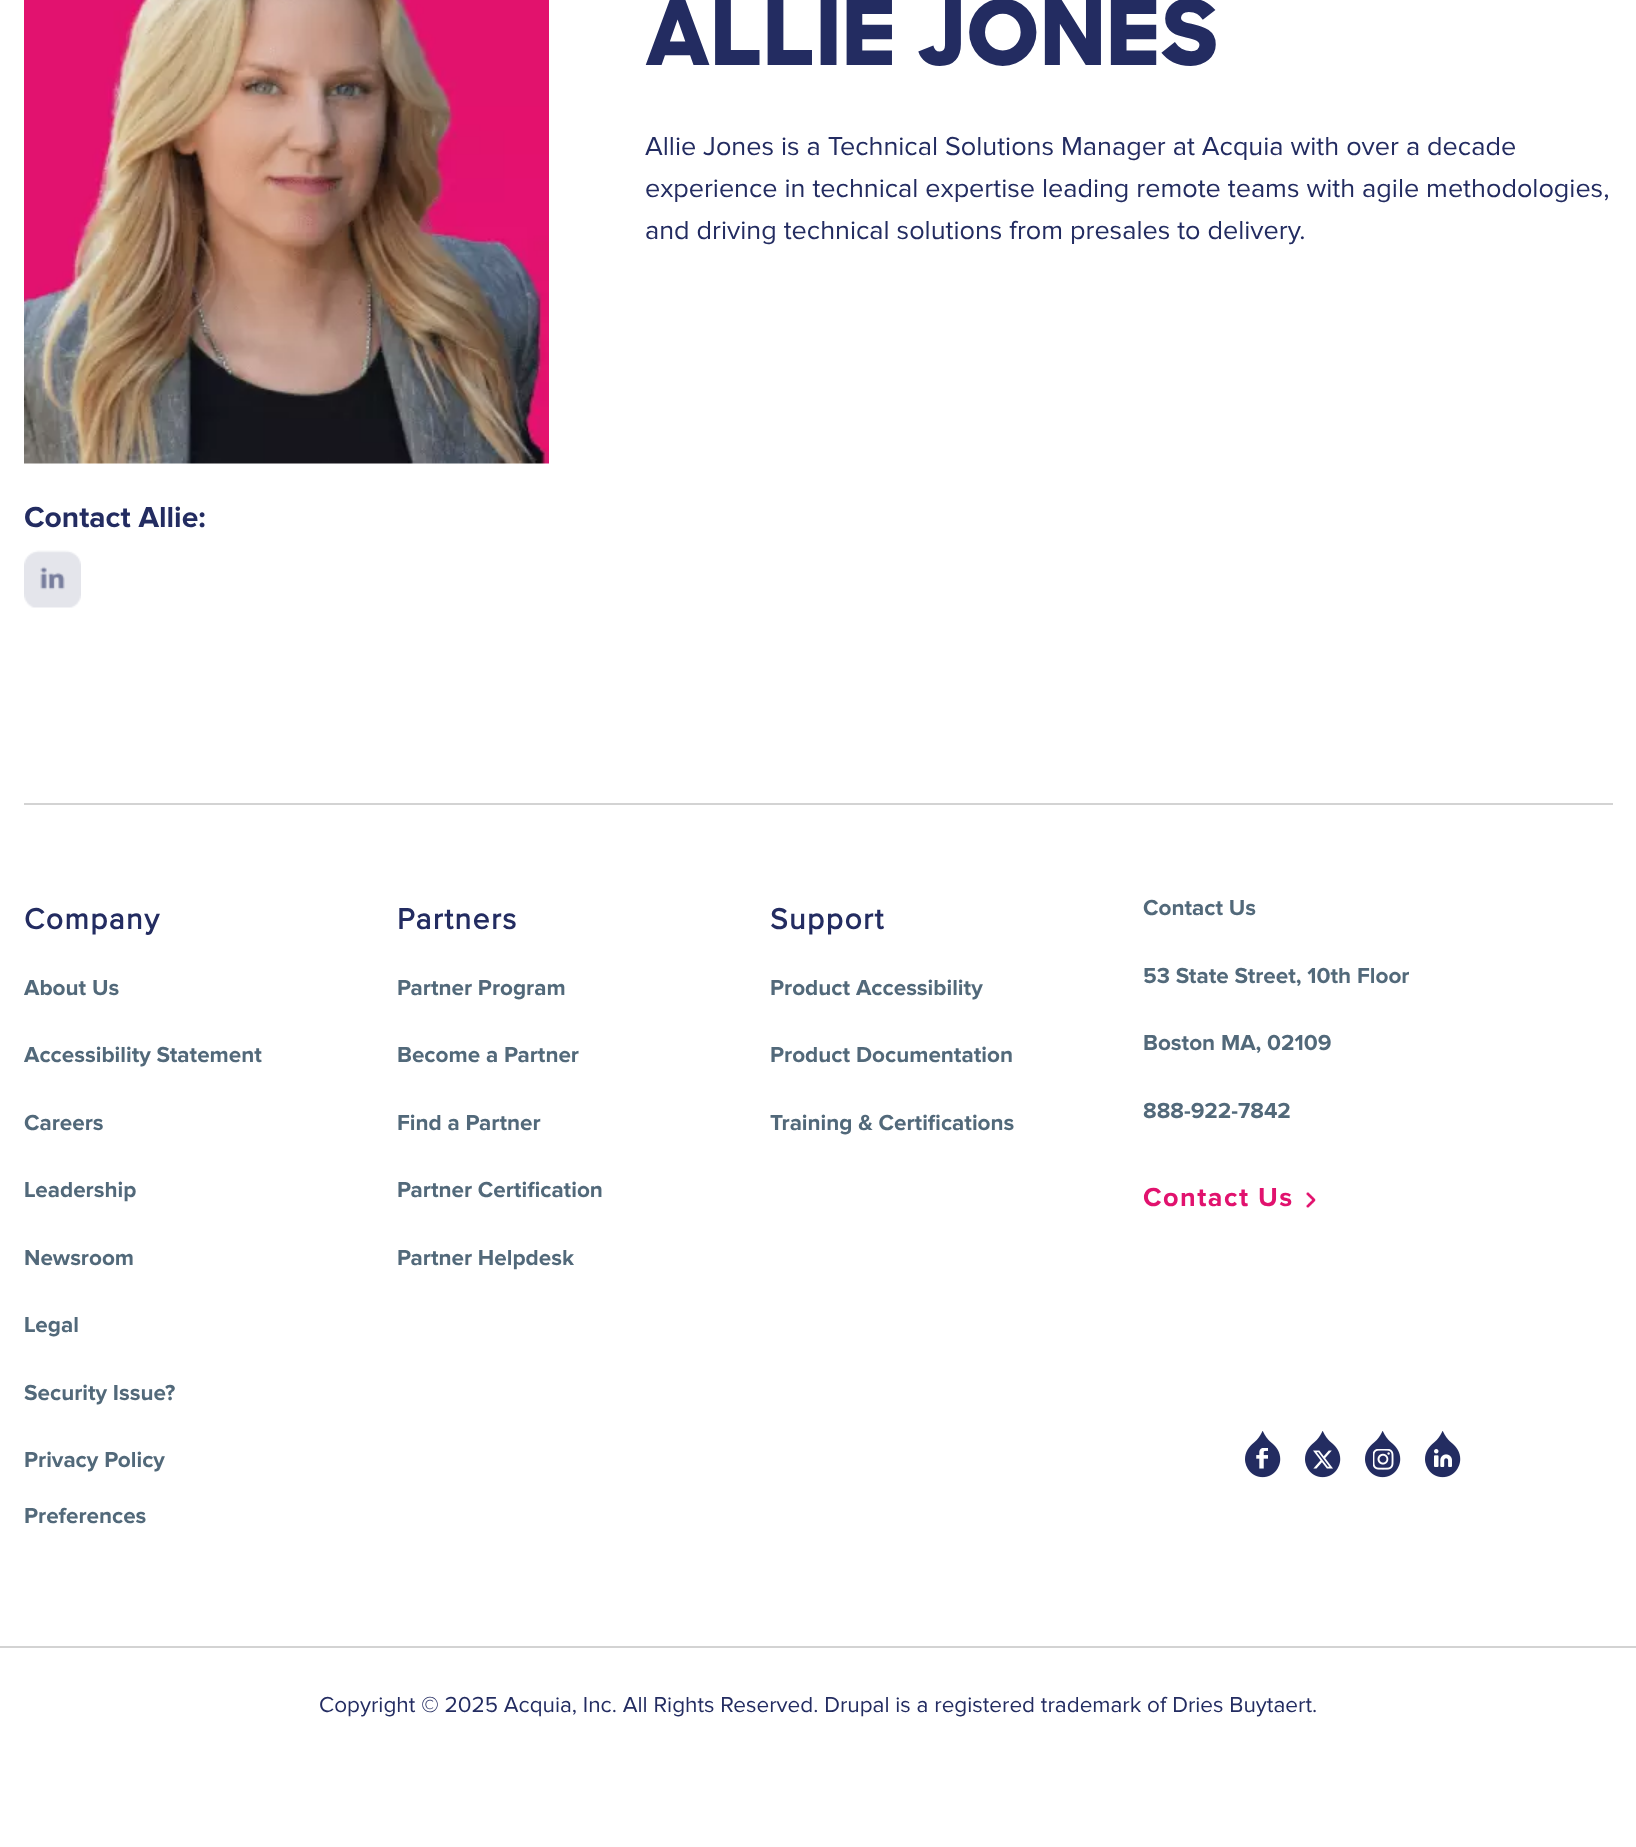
<!DOCTYPE html>
<meta charset="utf-8">
<style>body { margin: 0 } canvas { display: block }</style>
<canvas id="canvas" width="1636" height="1847"></canvas>
<img id="img1" src="images/1.png" hidden>
<img id="img2" src="images/2.png" hidden>
<img id="img3" src="images/3.png" hidden>
<img id="img4" src="images/4.png" hidden>
<img id="img5" src="images/5.png" hidden>
<img id="img6" src="images/6.png" hidden>
<img id="img7" src="images/7.png" hidden>
<script>
window.onload = function () {
    const canvas = document.getElementById('canvas');
    const context = canvas.getContext('2d');
    context.miterLimit = 4;
    context.fontKerning = 'normal';

    context.fillStyle = 'rgb(255, 255, 255)';
    context.fillRect(0, 0, 1636, 1847);
    context.drawImage(document.getElementById('img1'), 24, 0, 525, 464);
    context.drawImage(document.getElementById('img2'), 24, 550, 57, 58);
    context.fillStyle = 'rgb(211, 211, 211)';
    context.fillRect(24, 803, 1589, 2);
    context.drawImage(document.getElementById('img3'), 1306, 1192, 10, 16);
    context.drawImage(document.getElementById('img4'), 1245, 1431, 36, 47);
    context.drawImage(document.getElementById('img5'), 1305, 1431, 36, 47);
    context.drawImage(document.getElementById('img6'), 1365, 1431, 36, 47);
    context.drawImage(document.getElementById('img7'), 1425, 1431, 36, 47);
    context.fillRect(0, 1646, 1636, 2);
    context.font = '800 90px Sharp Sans';
    context.fillStyle = 'rgb(35, 44, 97)';
    context.fillText('ALLIE JONES', 645, 65);
    context.font = '27px Proxima Nova';
    context.fillText('Allie Jones is a Technical Solutions Manager at Acquia with over a decade', 645, 155);
    context.fillText('experience in technical expertise leading remote teams with agile methodologies,', 645, 197);
    context.fillText('and driving technical solutions from presales to delivery.', 645, 239);
    context.font = 'bold 30px Proxima Nova';
    context.fillText('Contact Allie:', 24, 527);
    context.letterSpacing = '1.5px';
    context.font = 'bold 30px "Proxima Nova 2"';
    context.fillText('Company', 24, 929);
    context.letterSpacing = '0px';
    context.font = 'bold 22.5px Proxima Nova';
    context.fillStyle = 'rgb(82, 105, 122)';
    context.fillText('About Us', 24, 995);
    context.fillText('Accessibility Statement', 24, 1062);
    context.fillText('Careers', 24, 1130);
    context.fillText('Leadership', 24, 1197);
    context.fillText('Newsroom', 24, 1265);
    context.fillText('Legal', 24, 1332);
    context.fillText('Security Issue?', 24, 1400);
    context.fillText('Privacy Policy', 24, 1467);
    context.fillText('Preferences', 24, 1523);
    context.letterSpacing = '1.5px';
    context.font = 'bold 30px "Proxima Nova 2"';
    context.fillStyle = 'rgb(35, 44, 97)';
    context.fillText('Partners', 397, 929);
    context.letterSpacing = '0px';
    context.font = 'bold 22.5px Proxima Nova';
    context.fillStyle = 'rgb(82, 105, 122)';
    context.fillText('Partner Program', 397, 995);
    context.fillText('Become a Partner', 397, 1062);
    context.fillText('Find a Partner', 397, 1130);
    context.fillText('Partner Certification', 397, 1197);
    context.fillText('Partner Helpdesk', 397, 1265);
    context.letterSpacing = '1.5px';
    context.font = 'bold 30px "Proxima Nova 2"';
    context.fillStyle = 'rgb(35, 44, 97)';
    context.fillText('Support', 770, 929);
    context.letterSpacing = '0px';
    context.font = 'bold 22.5px Proxima Nova';
    context.fillStyle = 'rgb(82, 105, 122)';
    context.fillText('Product Accessibility', 770, 995);
    context.fillText('Product Documentation', 770, 1062);
    context.fillText('Training & Certifications', 770, 1130);
    context.fillText('Contact Us', 1143, 915);
    context.fillText('53 State Street, 10th Floor', 1143, 983);
    context.fillText('Boston MA, 02109', 1143, 1050);
    context.fillText('888-922-7842', 1143, 1118);
    context.letterSpacing = '1.5px';
    context.font = 'bold 27px Proxima Nova';
    context.fillStyle = 'rgb(225, 18, 110)';
    context.fillText('Contact Us', 1143, 1206);
    context.letterSpacing = '0px';
    context.font = '22.5px Proxima Nova';
    context.fillStyle = 'rgb(35, 44, 97)';
    context.fillText('Copyright © 2025 Acquia, Inc. All Rights Reserved. Drupal is a registered trademark of Dries Buytaert.', 319, 1712);
};
</script>
